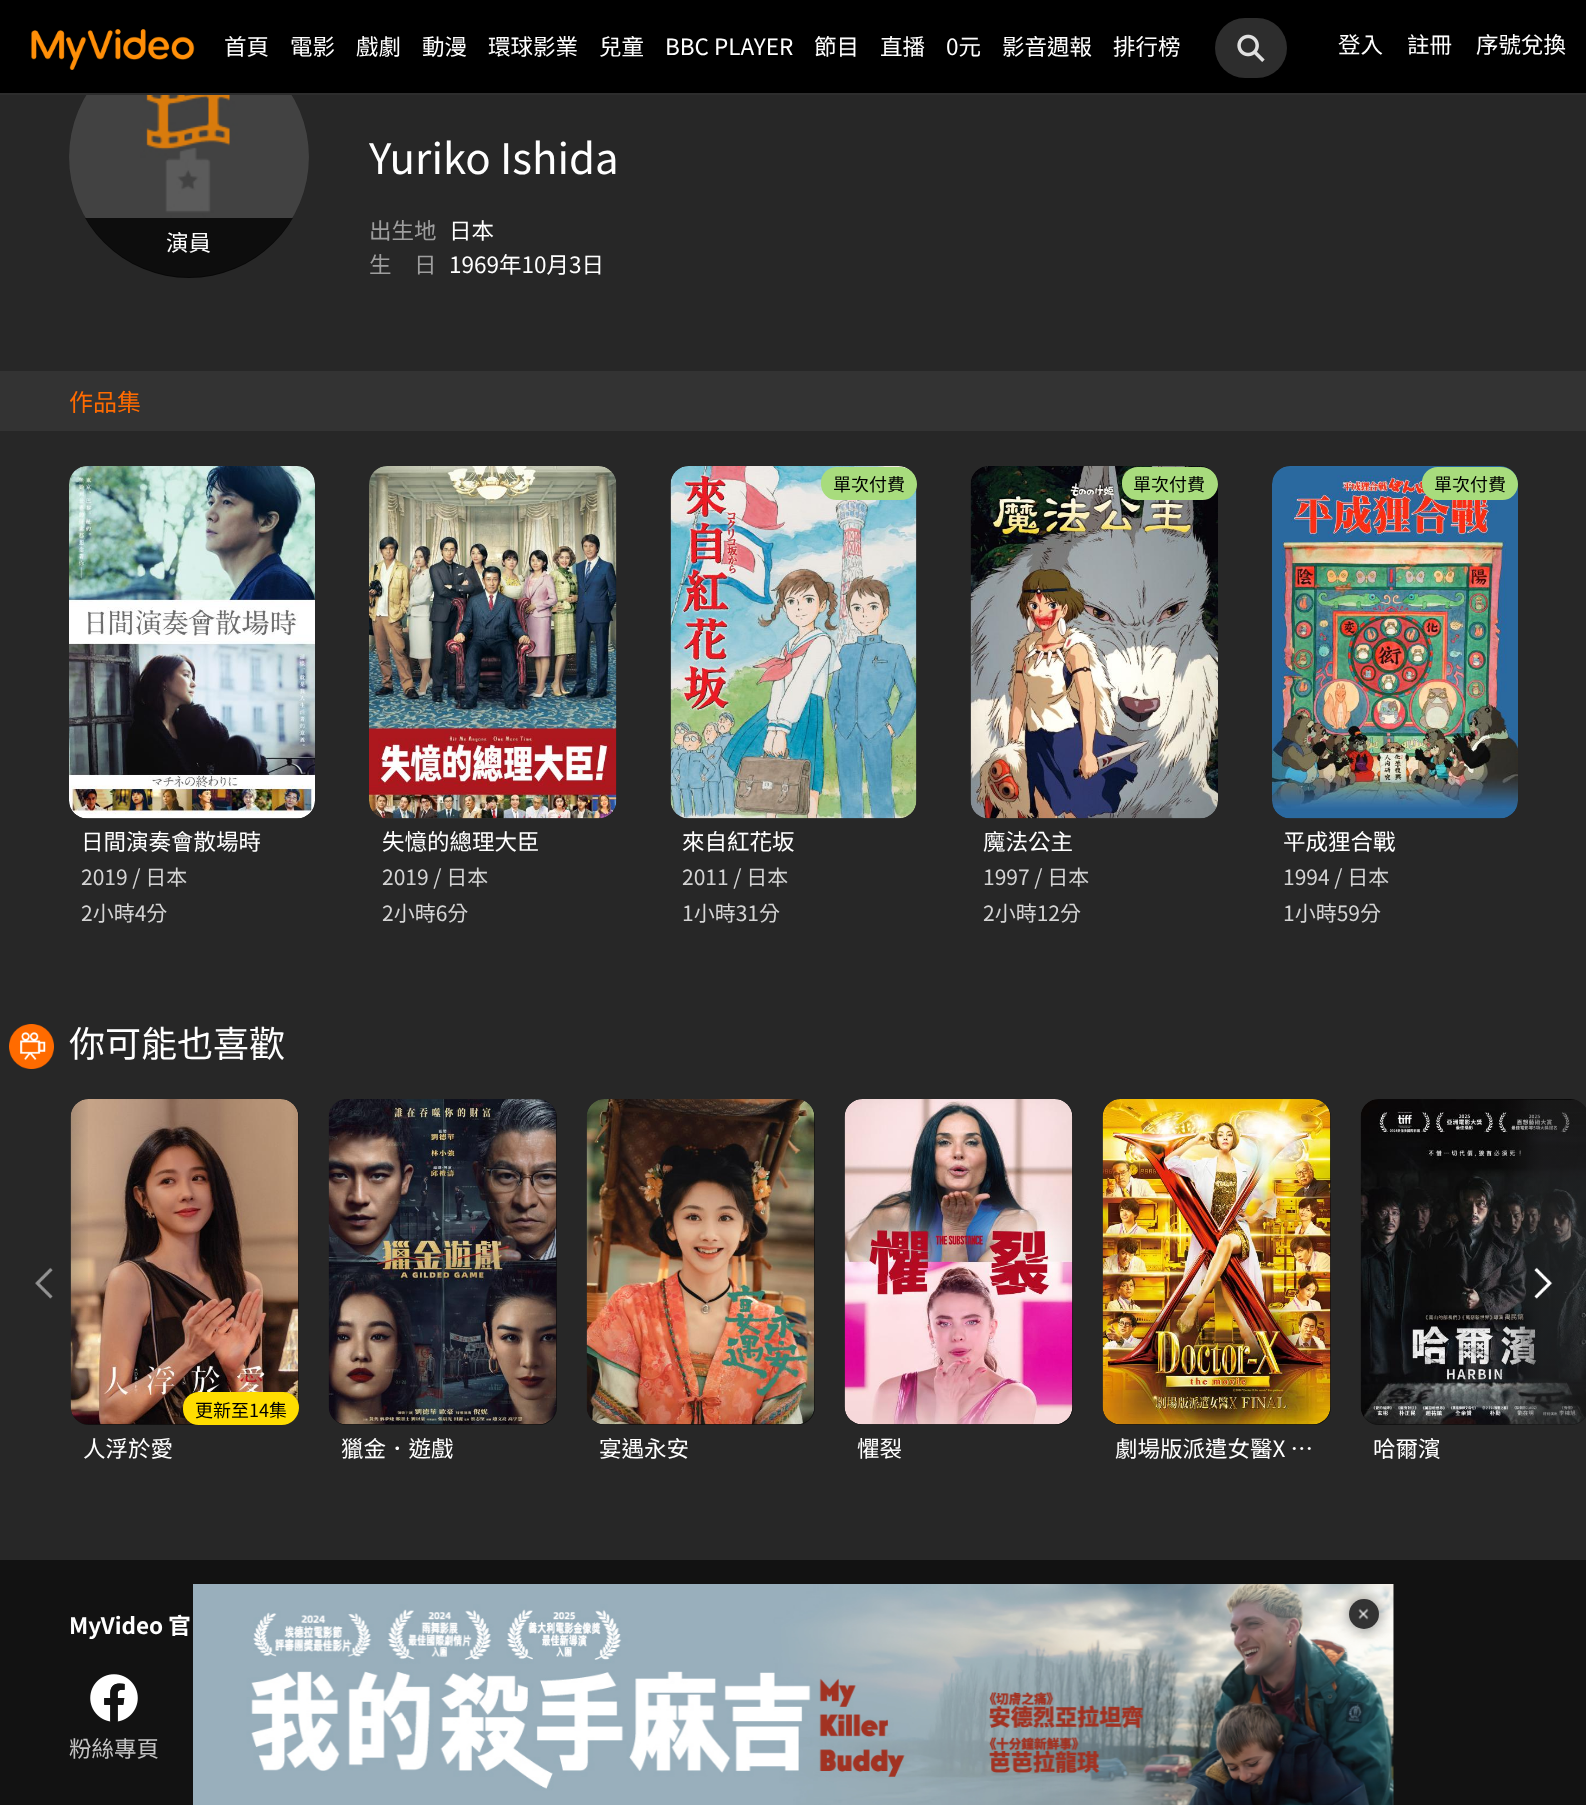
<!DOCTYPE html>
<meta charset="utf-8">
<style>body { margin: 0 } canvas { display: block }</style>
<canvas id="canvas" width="1586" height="1805"></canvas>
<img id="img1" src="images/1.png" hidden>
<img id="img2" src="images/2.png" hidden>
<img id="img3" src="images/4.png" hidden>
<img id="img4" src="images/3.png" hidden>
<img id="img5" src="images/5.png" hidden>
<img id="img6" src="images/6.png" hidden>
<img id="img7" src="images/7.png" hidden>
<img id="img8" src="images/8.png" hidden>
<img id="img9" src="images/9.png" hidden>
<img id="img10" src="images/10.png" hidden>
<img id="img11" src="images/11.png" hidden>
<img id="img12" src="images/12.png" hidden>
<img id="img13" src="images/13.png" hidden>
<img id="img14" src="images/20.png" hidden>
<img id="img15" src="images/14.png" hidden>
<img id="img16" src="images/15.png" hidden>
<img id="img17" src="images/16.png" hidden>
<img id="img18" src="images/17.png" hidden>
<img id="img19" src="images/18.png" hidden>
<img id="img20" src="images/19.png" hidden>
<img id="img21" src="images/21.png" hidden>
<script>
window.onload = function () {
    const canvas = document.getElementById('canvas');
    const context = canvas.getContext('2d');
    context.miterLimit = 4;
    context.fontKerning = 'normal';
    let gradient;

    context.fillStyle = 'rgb(39, 39, 39)';
    context.fillRect(0, 0, 1586, 1805);
    context.fillStyle = 'rgb(0, 0, 0)';
    context.fillRect(0, 0, 1586, 93);
    context.fillStyle = 'rgb(45, 45, 45)';
    context.fillRect(0, 93, 1586, 2);
    context.drawImage(document.getElementById('img1'), 31, 29, 164, 41);
    context.beginPath();
    context.roundRect(1215, 18, 72, 60, 30);
    context.fill();
    context.drawImage(document.getElementById('img2'), 1237, 34, 28, 28);
    context.fillStyle = 'rgb(18, 18, 18)';
    context.fillRect(0, 1560, 1586, 245);
    context.drawImage(document.getElementById('img3'), 193, 1584, 1201, 221);
    context.fillStyle = 'rgba(0, 0, 0, 0.5)';
    context.filter = 'blur(7.5px)';
    context.beginPath();
    context.roundRect(1349, 1599, 30, 30, 15);
    context.fill();
    context.filter = 'none';
    context.fillStyle = 'rgb(51, 51, 51)';
    context.beginPath();
    context.arc(1364, 1614, 15, 0, 2 * Math.PI);
    context.fill();
    context.drawImage(document.getElementById('img4'), 1358, 1608, 11, 12);
    context.drawImage(document.getElementById('img5'), 69, 95, 240, 182);
    context.drawImage(document.getElementById('img6'), 69, 95, 240, 182);
    context.save();
    context.beginPath();
    context.roundRect(69, 38, 240, 240, 120);
    context.clip();
    context.fillStyle = 'rgba(0, 0, 0, 0.8)';
    context.fillRect(85, 218, 208, 60);
    context.restore();
    context.fillRect(0, 371, 1586, 60);
    context.drawImage(document.getElementById('img7'), 69, 466, 246, 353);
    context.drawImage(document.getElementById('img8'), 369, 466, 248, 353);
    context.drawImage(document.getElementById('img9'), 670, 466, 247, 353);
    context.fillStyle = 'rgb(168, 220, 125)';
    context.beginPath();
    context.roundRect(821, 467, 96, 33, [16.5, 18, 16.5, 16.5]);
    context.fill();
    context.drawImage(document.getElementById('img10'), 970, 466, 248, 353);
    context.beginPath();
    context.roundRect(1122, 467, 96, 33, [16.5, 18, 16.5, 16.5]);
    context.fill();
    context.drawImage(document.getElementById('img11'), 1272, 466, 246, 353);
    context.beginPath();
    context.roundRect(1422, 467, 96, 33, [16.5, 18, 16.5, 16.5]);
    context.fill();
    context.drawImage(document.getElementById('img12'), 9, 1024, 45, 45);
    context.drawImage(document.getElementById('img13'), 35, 1267, 18, 32);
    context.fillStyle = 'rgb(18, 18, 18)';
    context.beginPath();
    context.roundRect(1361, 1100, 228, 325, 18);
    context.fill();
    context.drawImage(document.getElementById('img14'), 1360, 1099, 226, 326);
    gradient = context.createLinearGradient(1497, 1283, 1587, 1283);
    gradient.addColorStop(0, 'rgba(39, 39, 39, 0)');
    gradient.addColorStop(0.5, 'rgba(39, 39, 39, 0.5)');
    context.fillStyle = gradient;
    context.fillRect(1499, 1100, 87, 325);
    context.drawImage(document.getElementById('img15'), 1534, 1267, 19, 32);
    context.fillStyle = 'rgb(18, 18, 18)';
    context.beginPath();
    context.roundRect(71, 1100, 228, 325, 18);
    context.fill();
    context.drawImage(document.getElementById('img16'), 70, 1099, 229, 326);
    context.fillStyle = 'rgb(255, 221, 0)';
    context.beginPath();
    context.roundRect(183, 1392, 116, 33, [16.5, 16.5, 18, 16.5]);
    context.fill();
    context.fillStyle = 'rgb(18, 18, 18)';
    context.beginPath();
    context.roundRect(329, 1100, 228, 325, 18);
    context.fill();
    context.drawImage(document.getElementById('img17'), 328, 1099, 229, 326);
    context.beginPath();
    context.roundRect(587, 1100, 228, 325, 18);
    context.fill();
    context.drawImage(document.getElementById('img18'), 586, 1099, 229, 326);
    context.beginPath();
    context.roundRect(845, 1100, 228, 325, 18);
    context.fill();
    context.drawImage(document.getElementById('img19'), 844, 1099, 229, 326);
    context.beginPath();
    context.roundRect(1103, 1100, 228, 325, 18);
    context.fill();
    context.drawImage(document.getElementById('img20'), 1102, 1099, 229, 326);
    context.drawImage(document.getElementById('img21'), 90, 1674, 48, 48);
    context.font = '22.5px Noto Sans TC';
    context.fillStyle = 'rgb(255, 255, 255)';
    context.fillText('首頁', 224, 55);
    context.fillText('電影', 290, 55);
    context.fillText('戲劇', 356, 55);
    context.fillText('動漫', 422, 55);
    context.fillText('環球影業', 488, 55);
    context.fillText('兒童', 599, 55);
    context.fillText('BBC PLAYER', 665, 55);
    context.fillText('節目', 814, 55);
    context.fillText('直播', 880, 55);
    context.fillText('0元', 946, 55);
    context.fillText('影音週報', 1002, 55);
    context.fillText('排行榜', 1113, 55);
    context.fillText('登入', 1338, 53);
    context.fillText('註冊', 1407, 53);
    context.fillText('序號兌換', 1476, 53);
    context.fillText('演員', 166, 251);
    context.font = '42px Noto Sans TC';
    context.fillText('Yuriko Ishida', 369, 174);
    context.font = '22.5px Noto Sans TC';
    context.fillStyle = 'rgb(158, 158, 158)';
    context.fillText('出生地', 369, 239);
    context.fillStyle = 'rgb(255, 255, 255)';
    context.fillText('日本', 449, 239);
    context.fillStyle = 'rgb(158, 158, 158)';
    context.fillText('生 日', 369, 273);
    context.fillStyle = 'rgb(255, 255, 255)';
    context.fillText('1969年10月3日', 449, 273);
    context.font = '24px Noto Sans TC';
    context.fillStyle = 'rgb(255, 107, 0)';
    context.fillText('作品集', 69, 411);
    context.font = '22.5px Noto Sans TC';
    context.fillStyle = 'rgb(255, 255, 255)';
    context.fillText('日間演奏會散場時', 81, 850);
    context.font = '21px Noto Sans TC';
    context.fillStyle = 'rgb(212, 212, 212)';
    context.fillText('2019 / 日本', 81, 885);
    context.fillText('2小時4分', 81, 921);
    context.font = '22.5px Noto Sans TC';
    context.fillStyle = 'rgb(255, 255, 255)';
    context.fillText('失憶的總理大臣', 382, 850);
    context.font = '21px Noto Sans TC';
    context.fillStyle = 'rgb(212, 212, 212)';
    context.fillText('2019 / 日本', 382, 885);
    context.fillText('2小時6分', 382, 921);
    context.font = '18px Noto Sans TC';
    context.fillStyle = 'rgb(0, 0, 0)';
    context.fillText('單次付費', 833, 491);
    context.font = '22.5px Noto Sans TC';
    context.fillStyle = 'rgb(255, 255, 255)';
    context.fillText('來自紅花坂', 682, 850);
    context.font = '21px Noto Sans TC';
    context.fillStyle = 'rgb(212, 212, 212)';
    context.fillText('2011 / 日本', 682, 885);
    context.fillText('1小時31分', 682, 921);
    context.font = '18px Noto Sans TC';
    context.fillStyle = 'rgb(0, 0, 0)';
    context.fillText('單次付費', 1133, 491);
    context.font = '22.5px Noto Sans TC';
    context.fillStyle = 'rgb(255, 255, 255)';
    context.fillText('魔法公主', 983, 850);
    context.font = '21px Noto Sans TC';
    context.fillStyle = 'rgb(212, 212, 212)';
    context.fillText('1997 / 日本', 983, 885);
    context.fillText('2小時12分', 983, 921);
    context.font = '18px Noto Sans TC';
    context.fillStyle = 'rgb(0, 0, 0)';
    context.fillText('單次付費', 1434, 491);
    context.font = '22.5px Noto Sans TC';
    context.fillStyle = 'rgb(255, 255, 255)';
    context.fillText('平成狸合戰', 1283, 850);
    context.font = '21px Noto Sans TC';
    context.fillStyle = 'rgb(212, 212, 212)';
    context.fillText('1994 / 日本', 1283, 885);
    context.fillText('1小時59分', 1283, 921);
    context.font = '36px Noto Sans TC';
    context.fillStyle = 'rgb(255, 255, 255)';
    context.fillText('你可能也喜歡', 69, 1057);
    context.font = '18px Noto Sans TC';
    context.fillStyle = 'rgb(0, 0, 0)';
    context.fillText('更新至14集', 195, 1417);
    context.font = '22.5px Noto Sans TC';
    context.fillStyle = 'rgb(255, 255, 255)';
    context.fillText('人浮於愛', 83, 1457);
    gradient = context.createLinearGradient(0, 1283, 90, 1283);
    gradient.addColorStop(0.5, 'rgba(39, 39, 39, 0.5)');
    gradient.addColorStop(1, 'rgba(39, 39, 39, 0)');
    context.fillStyle = gradient;
    context.fillRect(70, 1100, 18, 359);
    context.fillStyle = 'rgb(255, 255, 255)';
    context.fillText('獵金．遊戲', 341, 1457);
    context.fillText('宴遇永安', 599, 1457);
    context.fillText('懼裂', 857, 1457);
    context.fillText('劇場版派遣女醫X …', 1115, 1457);
    context.fillText('哈爾濱', 1373, 1457);
    context.font = 'bold 22.5px Noto Sans TC';
    context.fillText('MyVideo 官', 69, 1634);
    context.font = '22.5px Noto Sans TC';
    context.fillStyle = 'rgb(196, 196, 196)';
    context.fillText('粉絲專頁', 69, 1757);
};
</script>
